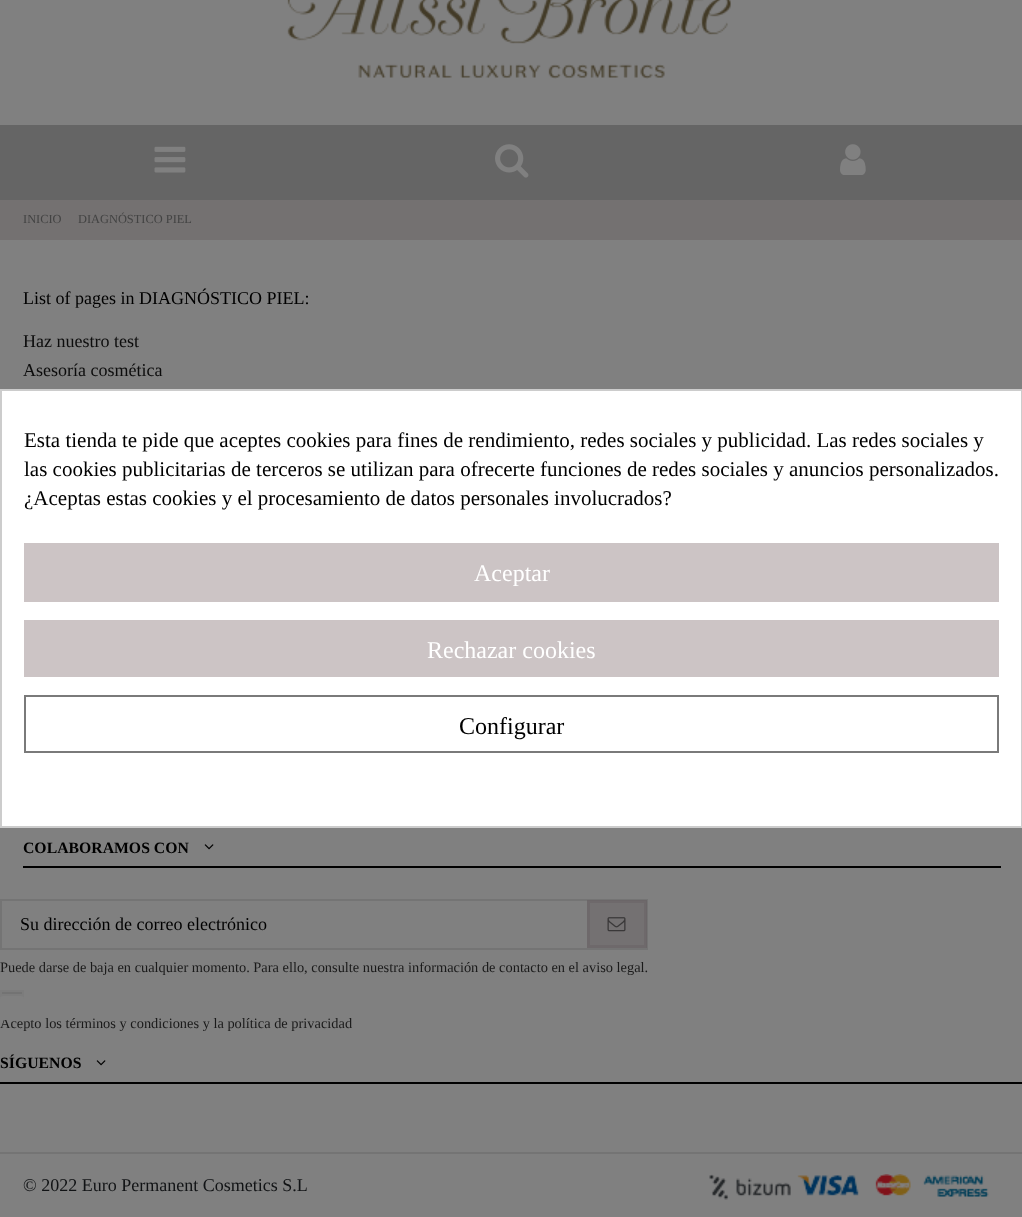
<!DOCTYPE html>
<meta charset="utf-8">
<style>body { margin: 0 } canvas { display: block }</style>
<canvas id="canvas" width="1022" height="1217"></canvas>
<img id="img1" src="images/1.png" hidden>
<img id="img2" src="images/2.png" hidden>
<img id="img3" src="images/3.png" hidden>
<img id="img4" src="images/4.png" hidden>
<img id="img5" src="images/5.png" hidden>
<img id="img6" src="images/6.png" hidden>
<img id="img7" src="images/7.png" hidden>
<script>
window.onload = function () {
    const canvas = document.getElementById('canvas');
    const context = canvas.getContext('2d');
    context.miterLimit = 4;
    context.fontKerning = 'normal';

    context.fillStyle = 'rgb(128, 128, 128)';
    context.fillRect(0, 0, 1022, 1217);
    context.drawImage(document.getElementById('img1'), 287, 0, 444, 79);
    context.fillStyle = 'rgb(101, 101, 101)';
    context.fillRect(0, 125, 1022, 75);
    context.drawImage(document.getElementById('img2'), 154, 146, 32, 27);
    context.drawImage(document.getElementById('img3'), 495, 144, 34, 34);
    context.drawImage(document.getElementById('img4'), 840, 144, 26, 31);
    context.fillStyle = 'rgb(116, 113, 113)';
    context.fillRect(0, 200, 1022, 40);
    context.fillStyle = 'rgb(0, 0, 0)';
    context.fillRect(23, 866, 978, 2);
    context.drawImage(document.getElementById('img5'), 204, 844, 10, 6);
    context.strokeStyle = 'rgb(116, 116, 116)';
    context.lineWidth = 2;
    context.strokeRect(1, 900, 646, 49);
    context.fillStyle = 'rgba(104, 98, 99, 0.5)';
    context.fillRect(587, 900, 60, 48);
    context.strokeStyle = 'rgba(104, 98, 99, 0.5)';
    context.lineWidth = 3;
    context.strokeRect(588.5, 901.5, 57, 45);
    context.drawImage(document.getElementById('img6'), 607, 917, 19, 15);
    context.fillStyle = 'rgb(124, 124, 124)';
    context.fillRect(2, 994, 20, 3);
    context.fillStyle = 'rgb(115, 115, 115)';
    context.fillRect(2, 992, 21, 2);
    context.strokeStyle = 'rgb(124, 124, 124)';
    context.lineWidth = 2;
    context.strokeRect(1, 991, 22, 22);
    context.fillStyle = 'rgb(0, 0, 0)';
    context.fillRect(0, 1082, 1022, 2);
    context.drawImage(document.getElementById('img5'), 96, 1060, 10, 6);
    context.fillStyle = 'rgb(116, 116, 116)';
    context.fillRect(0, 1152, 1022, 2);
    context.drawImage(document.getElementById('img7'), 709, 1174, 280, 26);
    context.fillStyle = 'rgb(255, 255, 255)';
    context.beginPath();
    context.rect(1, 390, 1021, 437);
    context.fill();
    context.strokeStyle = 'rgb(204, 204, 204)';
    context.stroke();
    context.fillStyle = 'rgb(204, 196, 197)';
    context.fillRect(24, 543, 975, 59);
    context.fillRect(24, 620, 975, 57);
    context.strokeStyle = 'rgb(122, 122, 122)';
    context.strokeRect(25, 696, 973, 56);
    context.font = '12.4px Liberation Serif';
    context.fillStyle = 'rgb(67, 67, 67)';
    context.fillText('INICIO', 23, 223);
    context.fillText('DIAGNÓSTICO PIEL', 78, 223);
    context.font = '18px Liberation Serif';
    context.fillStyle = 'rgb(0, 0, 0)';
    context.fillText('List of pages in DIAGNÓSTICO PIEL:', 23, 304);
    context.fillStyle = 'rgb(12, 12, 12)';
    context.fillText('Haz nuestro test', 23, 347);
    context.fillText('Asesoría cosmética', 23, 376);
    context.font = 'bold 15.75px Liberation Serif';
    context.fillStyle = 'rgb(0, 0, 0)';
    context.fillText('COLABORAMOS CON', 23, 853);
    context.font = '18px Liberation Serif';
    context.fillText('Su dirección de correo electrónico', 20, 930);
    context.font = '14.4px Liberation Serif';
    context.fillStyle = 'rgb(26, 26, 26)';
    context.fillText('Puede darse de baja en cualquier momento. Para ello, consulte nuestra información de contacto en el aviso legal.', 0, 972);
    context.fillText('Acepto los términos y condiciones y la política de privacidad', 0, 1028);
    context.fillStyle = 'rgb(128, 128, 128)';
    context.beginPath();
    context.roundRect(0, 996, 24, 24, 3);
    context.fill();
    context.font = 'bold 15.75px Liberation Serif';
    context.fillStyle = 'rgb(0, 0, 0)';
    context.fillText('SÍGUENOS', 0, 1068);
    context.font = '18px Liberation Serif';
    context.fillStyle = 'rgb(17, 19, 21)';
    context.fillText('© 2022 Euro Permanent Cosmetics S.L', 23, 1191);
    context.font = '21px Liberation Serif';
    context.fillStyle = 'rgb(0, 0, 0)';
    context.fillText('Esta tienda te pide que aceptes cookies para fines de rendimiento, redes sociales y publicidad. Las redes sociales y', 24, 447);
    context.fillText('las cookies publicitarias de terceros se utilizan para ofrecerte funciones de redes sociales y anuncios personalizados.', 24, 476);
    context.fillText('¿Aceptas estas cookies y el procesamiento de datos personales involucrados?', 24, 505);
    context.font = '24px Liberation Serif';
    context.fillStyle = 'rgb(255, 255, 255)';
    context.fillText('Aceptar', 474, 581);
    context.fillText('Rechazar cookies', 427, 658);
    context.fillStyle = 'rgb(0, 0, 0)';
    context.fillText('Configurar', 459, 734);
};
</script>
